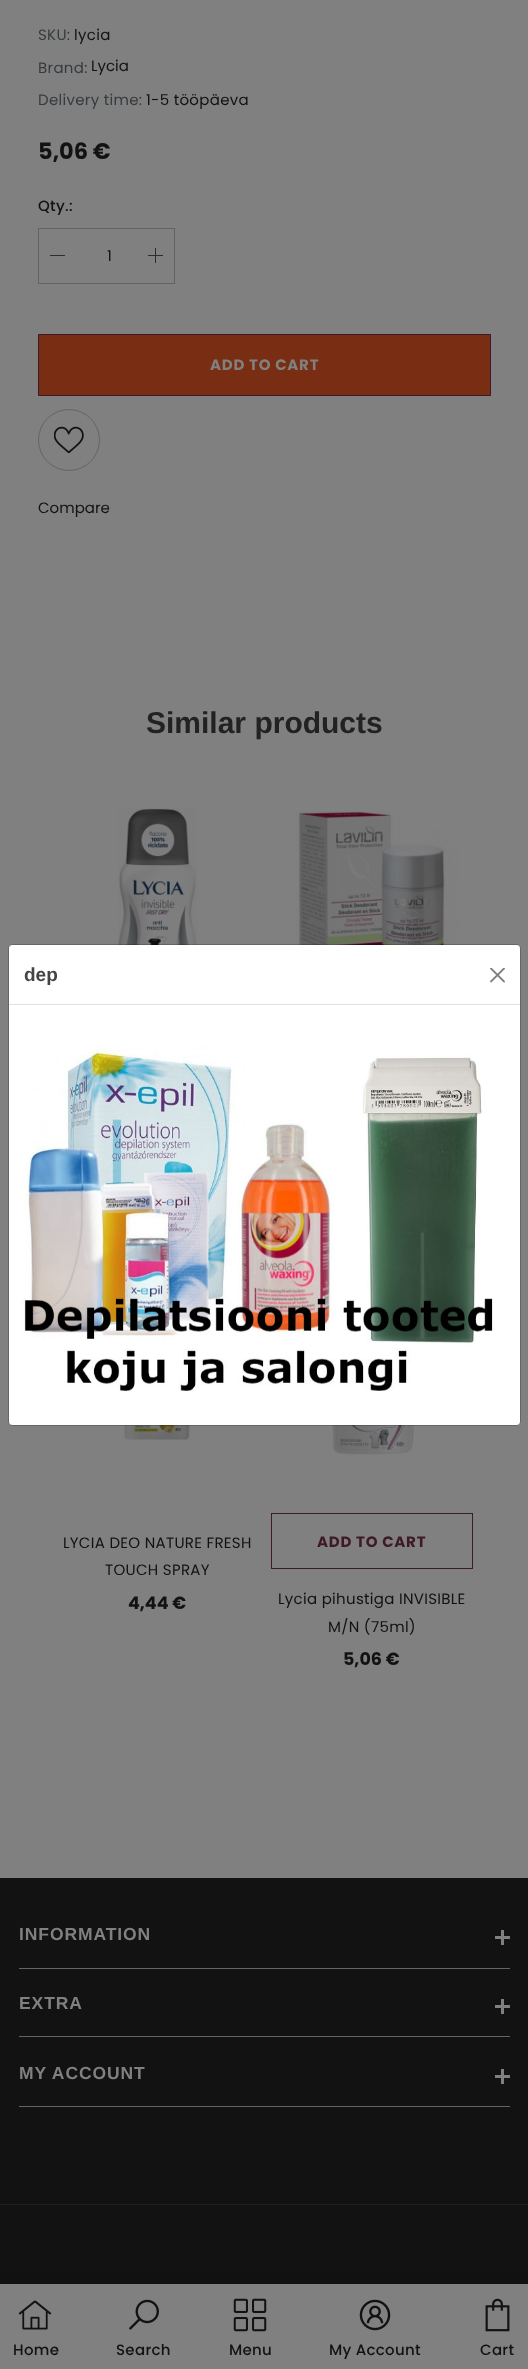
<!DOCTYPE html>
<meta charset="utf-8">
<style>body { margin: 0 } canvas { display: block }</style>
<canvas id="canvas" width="528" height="2369"></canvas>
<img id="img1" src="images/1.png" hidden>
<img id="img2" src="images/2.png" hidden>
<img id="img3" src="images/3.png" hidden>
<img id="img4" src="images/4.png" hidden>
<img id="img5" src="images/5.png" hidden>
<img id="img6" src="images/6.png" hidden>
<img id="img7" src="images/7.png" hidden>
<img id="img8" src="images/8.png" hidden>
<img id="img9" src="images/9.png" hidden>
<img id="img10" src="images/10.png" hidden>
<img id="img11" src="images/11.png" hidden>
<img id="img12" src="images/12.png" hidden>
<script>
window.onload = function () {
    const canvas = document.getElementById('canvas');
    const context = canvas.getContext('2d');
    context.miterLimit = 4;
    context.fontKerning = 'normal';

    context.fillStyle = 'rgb(128, 128, 128)';
    context.fillRect(0, 0, 528, 2369);
    context.strokeStyle = 'rgb(100, 100, 100)';
    context.strokeRect(38.5, 228.5, 136, 55);
    context.fillStyle = 'rgb(45, 45, 45)';
    context.fillRect(50, 255, 15, 1);
    context.fillRect(148, 255, 15, 1);
    context.fillRect(155, 248, 1, 15);
    context.fillStyle = 'rgb(121, 45, 18)';
    context.beginPath();
    context.rect(38.5, 334.5, 452, 61);
    context.fill();
    context.strokeStyle = 'rgb(62, 25, 40)';
    context.stroke();
    context.beginPath();
    context.arc(69, 440, 30.5, 0, 2 * Math.PI);
    context.strokeStyle = 'rgb(100, 100, 100)';
    context.stroke();
    context.drawImage(document.getElementById('img1'), 54, 426, 30, 28);
    context.drawImage(document.getElementById('img2'), 118, 808, 79, 137);
    context.drawImage(document.getElementById('img3'), 294, 811, 167, 134);
    context.drawImage(document.getElementById('img4'), 123, 1425, 68, 15);
    context.drawImage(document.getElementById('img5'), 329, 1425, 86, 30);
    context.strokeStyle = 'rgb(62, 25, 40)';
    context.strokeRect(271.5, 1513.5, 201, 55);
    context.fillStyle = 'rgb(255, 255, 255)';
    context.beginPath();
    context.roundRect(9, 945, 511, 480, 3);
    context.fill();
    context.beginPath();
    context.roundRect(8.5, 944.5, 512, 481, 4.5);
    context.strokeStyle = 'rgba(0, 0, 0, 0.2)';
    context.stroke();
    context.fillStyle = 'rgb(222, 226, 230)';
    context.fillRect(9, 1004, 511, 1);
    context.drawImage(document.getElementById('img6'), 490, 968, 15, 15);
    context.drawImage(document.getElementById('img7'), 21, 1045, 474, 346);
    context.fillStyle = 'rgb(18, 18, 18)';
    context.fillRect(0, 1878, 528, 406);
    context.fillStyle = 'rgb(100, 100, 100)';
    context.fillRect(19, 1968, 491, 1);
    context.fillStyle = 'rgb(128, 128, 128)';
    context.fillRect(501, 1930, 3, 15);
    context.fillRect(495, 1936, 15, 3);
    context.fillStyle = 'rgb(100, 100, 100)';
    context.fillRect(19, 2036, 491, 1);
    context.fillStyle = 'rgb(128, 128, 128)';
    context.fillRect(501, 1999, 3, 15);
    context.fillRect(495, 2005, 15, 3);
    context.fillStyle = 'rgb(100, 100, 100)';
    context.fillRect(19, 2106, 491, 1);
    context.fillStyle = 'rgb(128, 128, 128)';
    context.fillRect(501, 2069, 3, 15);
    context.fillRect(495, 2075, 15, 3);
    context.fillStyle = 'rgb(30, 30, 30)';
    context.fillRect(0, 2204, 528, 1);
    context.fillStyle = 'rgba(0, 0, 0, 0.12)';
    context.filter = 'blur(5.5px)';
    context.beginPath();
    context.rect(0, 2284, 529, 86);
    context.fill();
    context.filter = 'none';
    context.fillStyle = 'rgb(128, 128, 128)';
    context.fillRect(0, 2284, 528, 85);
    context.drawImage(document.getElementById('img8'), 18, 2300, 34, 30);
    context.drawImage(document.getElementById('img9'), 128, 2299, 31, 31);
    context.drawImage(document.getElementById('img10'), 233, 2298, 34, 34);
    context.drawImage(document.getElementById('img11'), 359, 2299, 32, 32);
    context.drawImage(document.getElementById('img12'), 485, 2298, 25, 34);
    context.letterSpacing = '0.3px';
    context.font = '15px Poppins';
    context.fillStyle = 'rgb(54, 59, 63)';
    context.fillText('SKU:', 38, 40);
    context.fillStyle = 'rgb(18, 18, 18)';
    context.fillText('lycia', 74, 40);
    context.fillStyle = 'rgb(54, 59, 63)';
    context.fillText('Brand:', 38, 73);
    context.letterSpacing = '0px';
    context.fillStyle = 'rgb(18, 18, 18)';
    context.fillText('Lycia', 91, 71);
    context.letterSpacing = '0.3px';
    context.fillStyle = 'rgb(54, 59, 63)';
    context.fillText('Delivery time:', 38, 105);
    context.fillStyle = 'rgb(18, 18, 18)';
    context.fillText('1-5 tööpäeva', 146, 105);
    context.letterSpacing = '0px';
    context.font = 'bold 22.5px Poppins';
    context.fillText('5,06 €', 38, 159);
    context.letterSpacing = '0.3px';
    context.font = '500 15px Poppins';
    context.fillText('Qty.:', 38, 211);
    context.font = '15px Poppins';
    context.fillText('1', 107, 261);
    context.letterSpacing = '0.75px';
    context.font = 'bold 15px Poppins';
    context.fillStyle = 'rgb(128, 128, 128)';
    context.fillText('ADD TO CART', 210, 370);
    context.letterSpacing = '0px';
    context.font = '15px Poppins';
    context.fillStyle = 'rgb(18, 18, 18)';
    context.fillText('Compare', 38, 513);
    context.font = 'bold 30px Liberation Sans';
    context.fillStyle = 'rgb(34, 34, 34)';
    context.fillText('Similar products', 146, 733);
    context.letterSpacing = '0.3px';
    context.font = '15px Poppins';
    context.fillStyle = 'rgb(18, 18, 18)';
    context.fillText('LYCIA DEO NATURE FRESH', 63, 1548);
    context.fillText('TOUCH SPRAY', 105, 1575);
    context.letterSpacing = '0px';
    context.font = 'bold 17.5px Poppins';
    context.fillText('4,44 €', 128, 1609);
    context.letterSpacing = '0.75px';
    context.font = 'bold 15px Poppins';
    context.fillStyle = 'rgb(62, 25, 40)';
    context.fillText('ADD TO CART', 317, 1547);
    context.letterSpacing = '0.3px';
    context.font = '15px Poppins';
    context.fillStyle = 'rgb(18, 18, 18)';
    context.fillText('Lycia pihustiga INVISIBLE', 278, 1604);
    context.fillText('M/N (75ml)', 328, 1632);
    context.letterSpacing = '0px';
    context.font = 'bold 17.5px Poppins';
    context.fillText('5,06 €', 343, 1665);
    context.font = 'bold 19px Liberation Sans';
    context.fillStyle = 'rgb(68, 68, 68)';
    context.fillText('dep', 24, 981);
    context.letterSpacing = '0.9px';
    context.font = 'bold 17.5px Liberation Sans';
    context.fillStyle = 'rgb(128, 128, 128)';
    context.fillText('INFORMATION', 19, 1940);
    context.fillText('EXTRA', 19, 2009);
    context.fillText('MY ACCOUNT', 19, 2079);
    context.letterSpacing = '0.3px';
    context.font = '500 15px Poppins';
    context.fillStyle = 'rgb(18, 18, 18)';
    context.fillText('Home', 13, 2355);
    context.fillText('Search', 116, 2355);
    context.fillText('Menu', 229, 2355);
    context.fillText('My Account', 329, 2355);
    context.fillText('Cart', 480, 2355);
};
</script>
